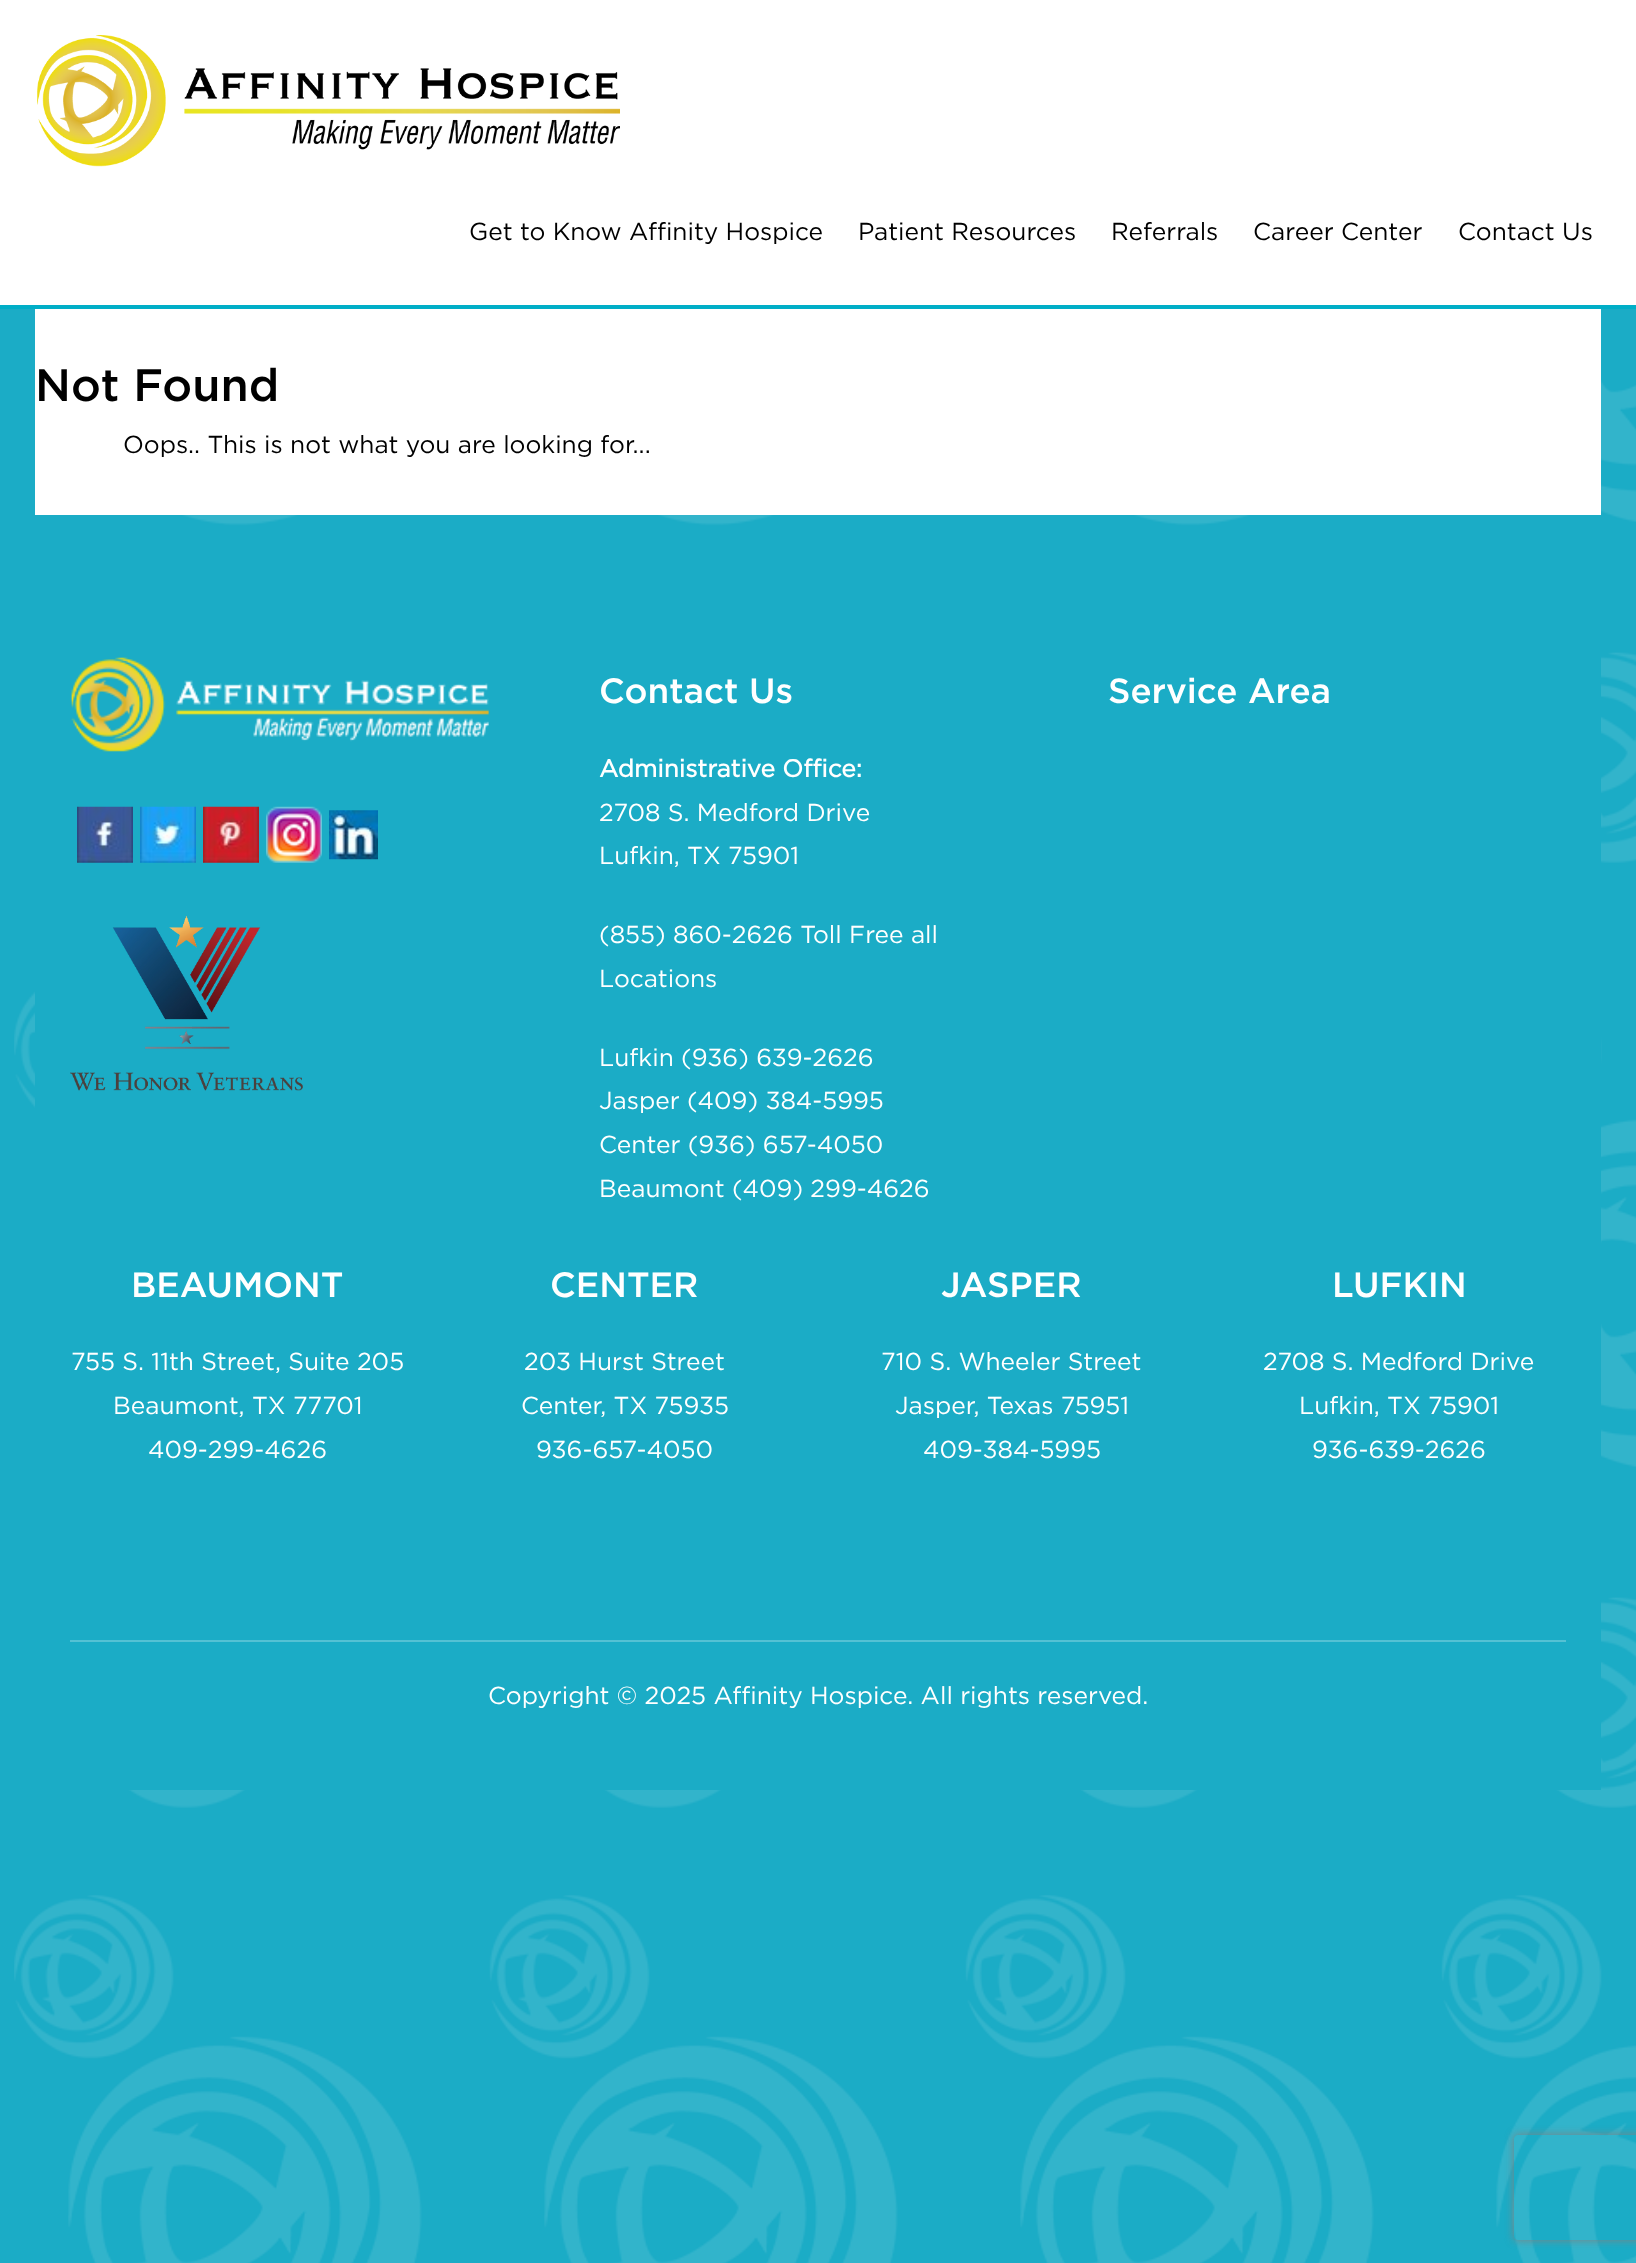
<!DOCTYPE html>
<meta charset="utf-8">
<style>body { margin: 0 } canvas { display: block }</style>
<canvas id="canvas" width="1636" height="2263"></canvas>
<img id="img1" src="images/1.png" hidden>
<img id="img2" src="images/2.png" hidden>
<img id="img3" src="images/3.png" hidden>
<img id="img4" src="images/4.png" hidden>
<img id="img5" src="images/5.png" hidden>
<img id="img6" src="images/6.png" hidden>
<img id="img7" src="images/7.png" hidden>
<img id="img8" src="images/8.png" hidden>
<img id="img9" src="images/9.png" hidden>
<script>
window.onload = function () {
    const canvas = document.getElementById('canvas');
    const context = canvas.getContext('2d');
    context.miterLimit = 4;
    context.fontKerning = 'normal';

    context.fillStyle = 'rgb(27, 172, 198)';
    context.fillRect(0, 0, 1636, 2263);
    context.drawImage(document.getElementById('img1'), 14, 380, 1622, 1883);
    context.fillStyle = 'rgb(255, 255, 255)';
    context.fillRect(0, 0, 1636, 305);
    context.fillStyle = 'rgb(0, 174, 199)';
    context.fillRect(0, 305, 1636, 4);
    context.drawImage(document.getElementById('img2'), 37, 35, 583, 132);
    context.fillStyle = 'rgb(255, 255, 255)';
    context.fillRect(35, 309, 1566, 206);
    context.fillStyle = 'rgb(27, 172, 198)';
    context.fillRect(35, 652, 1566, 1138);
    context.drawImage(document.getElementById('img3'), 71, 657, 418, 95);
    context.drawImage(document.getElementById('img4'), 77, 806, 56, 57);
    context.drawImage(document.getElementById('img5'), 140, 806, 56, 57);
    context.drawImage(document.getElementById('img6'), 203, 806, 56, 57);
    context.drawImage(document.getElementById('img7'), 266, 806, 56, 57);
    context.drawImage(document.getElementById('img8'), 329, 810, 49, 50);
    context.drawImage(document.getElementById('img9'), 70, 916, 233, 175);
    context.fillStyle = 'rgb(84, 193, 212)';
    context.fillRect(70, 1640, 1496, 2);
    context.save();
    context.beginPath();
    context.moveTo(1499, 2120);
    context.lineTo(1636, 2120);
    context.lineTo(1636, 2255);
    context.lineTo(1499, 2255);
    context.closePath();
    context.moveTo(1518, 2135);
    context.lineTo(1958, 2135);
    context.bezierCurveTo(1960, 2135, 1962, 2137, 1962, 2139);
    context.lineTo(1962, 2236);
    context.bezierCurveTo(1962, 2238, 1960, 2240, 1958, 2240);
    context.lineTo(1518, 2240);
    context.bezierCurveTo(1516, 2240, 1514, 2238, 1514, 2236);
    context.lineTo(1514, 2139);
    context.bezierCurveTo(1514, 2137, 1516, 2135, 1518, 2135);
    context.closePath();
    context.clip('evenodd');
    context.fillStyle = 'rgb(128, 128, 128)';
    context.filter = 'blur(4.5px)';
    context.beginPath();
    context.roundRect(1514, 2135, 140, 105, 4);
    context.fill();
    context.filter = 'none';
    context.restore();
    context.font = '24.5px Gotham';
    context.fillStyle = 'rgb(0, 0, 0)';
    context.fillText('Get to Know Affinity Hospice', 469, 240);
    context.fillText('Patient Resources', 858, 240);
    context.fillText('Referrals', 1111, 240);
    context.fillText('Career Center', 1253, 240);
    context.fillText('Contact Us', 1458, 240);
    context.font = '500 45.5px Gotham';
    context.fillText('Not Found', 35, 401);
    context.font = '24.5px Gotham';
    context.fillText('Oops.. This is not what you are looking for...', 123, 453);
    context.font = '500 35px Gotham';
    context.fillStyle = 'rgb(255, 255, 255)';
    context.fillText('Contact Us', 599, 703);
    context.font = 'bold 24.5px Gotham';
    context.fillText('Administrative Office:', 599, 777);
    context.font = '24.5px Gotham';
    context.fillText('2708 S. Medford Drive', 599, 821);
    context.fillText('Lufkin, TX 75901', 599, 864);
    context.fillText('(855) 860-2626 Toll Free all', 599, 943);
    context.fillText('Locations', 599, 987);
    context.fillText('Lufkin (936) 639-2626', 599, 1066);
    context.fillText('Jasper (409) 384-5995', 599, 1109);
    context.fillText('Center (936) 657-4050', 599, 1153);
    context.fillText('Beaumont (409) 299-4626', 599, 1197);
    context.font = '500 35px Gotham';
    context.fillText('Service Area', 1108, 703);
    context.fillText('BEAUMONT', 131, 1297);
    context.font = '24.5px Gotham';
    context.fillText('755 S. 11th Street, Suite 205', 71, 1370);
    context.fillText('Beaumont, TX 77701', 113, 1414);
    context.fillText('409-299-4626', 148, 1458);
    context.font = '500 35px Gotham';
    context.fillText('CENTER', 550, 1297);
    context.font = '24.5px Gotham';
    context.fillText('203 Hurst Street', 524, 1370);
    context.fillText('Center, TX 75935', 521, 1414);
    context.fillText('936-657-4050', 536, 1458);
    context.font = '500 35px Gotham';
    context.fillText('JASPER', 941, 1297);
    context.font = '24.5px Gotham';
    context.fillText('710 S. Wheeler Street', 881, 1370);
    context.fillText('Jasper, Texas 75951', 895, 1414);
    context.fillText('409-384-5995', 923, 1458);
    context.font = '500 35px Gotham';
    context.fillText('LUFKIN', 1332, 1297);
    context.font = '24.5px Gotham';
    context.fillText('2708 S. Medford Drive', 1263, 1370);
    context.fillText('Lufkin, TX 75901', 1299, 1414);
    context.fillText('936-639-2626', 1312, 1458);
    context.fillText('Copyright © 2025 Affinity Hospice. All rights reserved.', 488, 1704);
};
</script>
